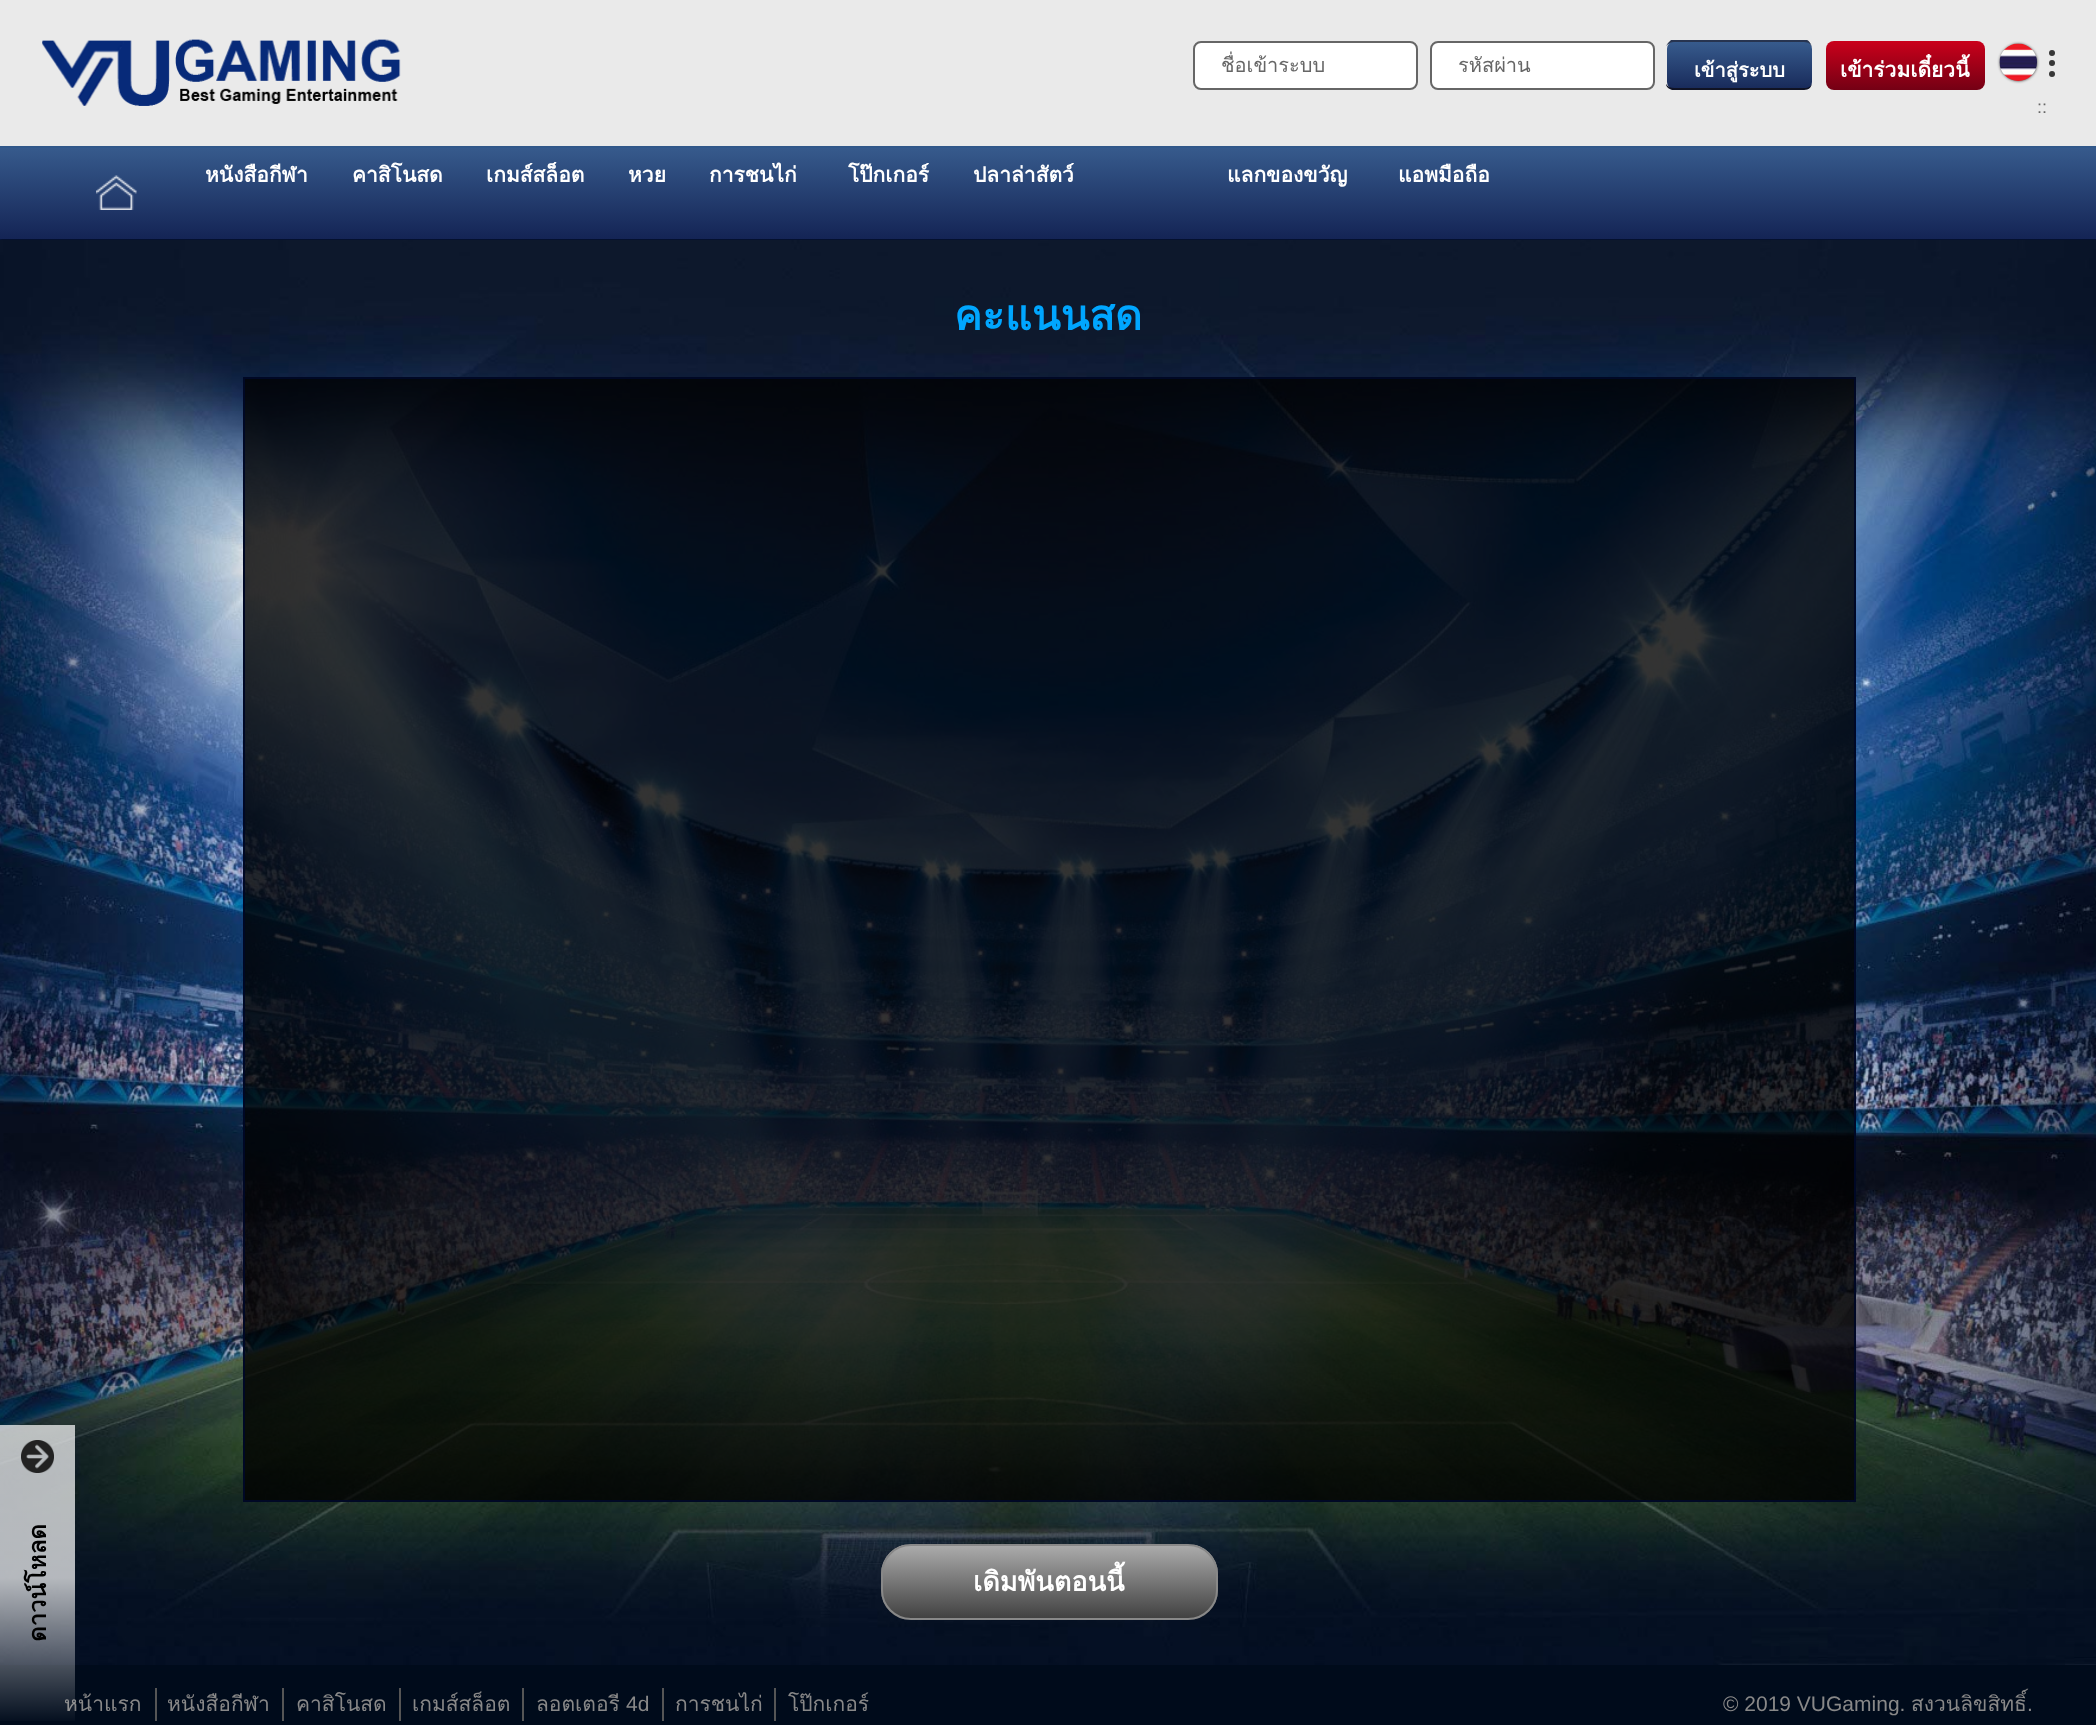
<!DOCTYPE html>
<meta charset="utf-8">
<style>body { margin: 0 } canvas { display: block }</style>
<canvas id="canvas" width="2096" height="1725"></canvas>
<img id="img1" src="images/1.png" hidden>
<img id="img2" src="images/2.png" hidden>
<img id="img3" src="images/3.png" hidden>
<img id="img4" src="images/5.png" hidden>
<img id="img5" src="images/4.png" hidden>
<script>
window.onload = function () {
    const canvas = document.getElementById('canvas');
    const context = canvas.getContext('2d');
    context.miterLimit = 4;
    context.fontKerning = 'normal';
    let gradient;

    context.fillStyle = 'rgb(234, 234, 234)';
    context.fillRect(0, 0, 2096, 1725);
    context.drawImage(document.getElementById('img1'), 42, 39, 359, 67);
    gradient = context.createLinearGradient(1905, 40, 1905, 90);
    gradient.addColorStop(0, 'rgb(204, 0, 27)');
    gradient.addColorStop(1, 'rgb(116, 0, 20)');
    context.fillStyle = gradient;
    context.beginPath();
    context.roundRect(1826, 41, 159, 49, 8);
    context.fill();
    context.fillStyle = 'rgb(51, 51, 51)';
    context.filter = 'blur(1.5px)';
    context.beginPath();
    context.roundRect(2000, 44, 37, 37, 18.5);
    context.fill();
    context.filter = 'none';
    context.drawImage(document.getElementById('img2'), 1999, 43, 38, 38);
    context.fillStyle = 'rgb(55, 55, 55)';
    context.beginPath();
    context.arc(2052, 53, 3, 0, 2 * Math.PI);
    context.fill();
    context.beginPath();
    context.arc(2052, 63, 3, 0, 2 * Math.PI);
    context.fill();
    context.beginPath();
    context.arc(2052, 74, 3, 0, 2 * Math.PI);
    context.fill();
    context.fillStyle = 'rgb(255, 255, 255)';
    context.beginPath();
    context.roundRect(1194, 42, 223, 47, 7);
    context.fill();
    context.strokeStyle = 'rgb(102, 102, 102)';
    context.lineWidth = 2;
    context.stroke();
    context.beginPath();
    context.roundRect(1431, 42, 223, 47, 7);
    context.fill();
    context.stroke();
    context.save();
    context.beginPath();
    context.roundRect(1667, 41, 145, 49, 8);
    context.clip();
    gradient = context.createLinearGradient(1739, 42, 1739, 89);
    gradient.addColorStop(0, 'rgb(55, 91, 141)');
    gradient.addColorStop(1, 'rgb(24, 42, 90)');
    context.fillStyle = gradient;
    context.fillRect(1667, 42, 145, 47);
    context.restore();
    context.fillStyle = 'rgb(39, 52, 80)';
    context.beginPath();
    context.moveTo(1674, 42);
    context.bezierCurveTo(1671, 42, 1668, 44, 1666, 46);
    context.lineTo(1668, 43);
    context.lineTo(1671, 40);
    context.lineTo(1807, 40);
    context.bezierCurveTo(1810, 41, 1812, 46, 1812, 48);
    context.bezierCurveTo(1812, 45, 1809, 42, 1804, 42);
    context.closePath();
    context.fill();
    context.fillStyle = 'rgb(16, 19, 36)';
    context.beginPath();
    context.moveTo(1804, 90);
    context.bezierCurveTo(1809, 90, 1812, 87, 1812, 82);
    context.bezierCurveTo(1812, 86, 1809, 88, 1804, 88);
    context.lineTo(1674, 88);
    context.bezierCurveTo(1671, 88, 1668, 87, 1666, 84);
    context.bezierCurveTo(1666, 87, 1669, 89, 1672, 90);
    context.closePath();
    context.fill();
    gradient = context.createLinearGradient(1049, 147, 1049, 239);
    gradient.addColorStop(0, 'rgb(55, 91, 141)');
    gradient.addColorStop(1, 'rgb(20, 36, 85)');
    context.fillStyle = gradient;
    context.fillRect(0, 148, 2096, 91);
    context.fillStyle = 'rgb(49, 89, 140)';
    context.fillRect(0, 146, 2096, 2);
    context.fillStyle = 'rgb(7, 24, 70)';
    context.fillRect(0, 239, 2096, 1);
    context.save();
    context.beginPath();
    context.moveTo(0, 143);
    context.lineTo(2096, 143);
    context.lineTo(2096, 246);
    context.lineTo(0, 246);
    context.closePath();
    context.moveTo(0, 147);
    context.lineTo(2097, 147);
    context.lineTo(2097, 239);
    context.lineTo(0, 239);
    context.closePath();
    context.clip('evenodd');
    context.fillStyle = 'rgba(0, 0, 0, 0.5)';
    context.filter = 'blur(1.5px)';
    context.beginPath();
    context.rect(0, 149, 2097, 91);
    context.fill();
    context.filter = 'none';
    context.restore();
    context.drawImage(document.getElementById('img3'), 96, 175, 41, 35);
    context.drawImage(document.getElementById('img4'), 0, 240, 2096, 1425);
    context.fillStyle = 'rgba(0, 0, 0, 0.8)';
    context.beginPath();
    context.rect(244, 378, 1611, 1123);
    context.fill();
    context.strokeStyle = 'rgb(0, 8, 37)';
    context.stroke();
    context.save();
    context.beginPath();
    context.roundRect(881, 1544, 337, 76, 30);
    context.clip();
    gradient = context.createLinearGradient(1049, 1619, 1049, 1545);
    gradient.addColorStop(0, 'rgb(64, 64, 64)');
    gradient.addColorStop(1, 'rgb(172, 172, 172)');
    context.fillStyle = gradient;
    context.fillRect(881, 1545, 337, 74);
    context.restore();
    context.beginPath();
    context.roundRect(882, 1545, 335, 74, 29);
    context.strokeStyle = 'rgb(136, 136, 136)';
    context.stroke();
    context.fillStyle = 'rgb(0, 11, 27)';
    context.fillRect(0, 1665, 2096, 60);
    context.fillStyle = 'rgb(85, 85, 85)';
    context.fillRect(155, 1688, 2, 33);
    context.fillRect(282, 1688, 2, 33);
    context.fillRect(399, 1688, 2, 33);
    context.fillRect(522, 1688, 2, 33);
    context.fillRect(662, 1688, 2, 33);
    context.fillRect(774, 1688, 2, 33);
    context.font = 'bold 21px Loma';
    context.fillStyle = 'rgb(255, 255, 255)';
    context.fillText('เข้าร่วมเดี๋ยวนี้', 1840, 77);
    context.save();
    context.beginPath();
    context.rect(1221, 50, 168, 31);
    context.clip();
    context.font = '20px Loma';
    context.fillStyle = 'rgb(102, 102, 102)';
    context.fillText('ชื่อเข้าระบบ', 1221, 72);
    context.restore();
    context.font = '20px Loma';
    context.fillStyle = 'rgb(102, 102, 102)';
    context.fillText('รหัสผ่าน', 1458, 72);
    context.font = 'bold 20px Loma';
    context.fillStyle = 'rgb(255, 255, 255)';
    context.fillText('เข้าสู่ระบบ', 1694, 77);
    context.font = '18px Liberation Sans';
    context.fillStyle = 'rgb(102, 102, 102)';
    context.fillText('::', 2037, 113);
    context.font = 'bold 21px Loma';
    context.fillStyle = 'rgb(255, 255, 255)';
    context.fillText('หนังสือกีฬา', 205, 182);
    context.fillText('คาสิโนสด', 352, 182);
    context.fillText('เกมส์สล็อต', 486, 182);
    context.fillText('หวย', 628, 182);
    context.fillText('การชนไก่', 709, 182);
    context.fillText('โป๊กเกอร์', 848, 182);
    context.fillText('ปลาล่าสัตว์', 973, 182);
    context.fillText('แลกของขวัญ', 1227, 182);
    context.fillText('แอพมือถือ', 1398, 182);
    context.font = 'bold 42px Loma';
    context.fillStyle = 'rgb(0, 166, 255)';
    context.fillText('คะแนนสด', 954, 330);
    context.font = 'bold 27px Loma';
    context.fillStyle = 'rgb(255, 255, 255)';
    context.fillText('เดิมพันตอนนี้', 973, 1591);
    context.font = '21px Loma';
    context.fillStyle = 'rgb(136, 136, 136)';
    context.fillText('หน้าแรก', 64, 1711);
    gradient = context.createLinearGradient(37, 1425, 38, 1725);
    gradient.addColorStop(0, 'rgba(255, 255, 255, 0.7)');
    gradient.addColorStop(0.51, 'rgba(255, 255, 255, 0.7)');
    gradient.addColorStop(1, 'rgba(255, 255, 255, 0)');
    context.fillStyle = gradient;
    context.fillRect(0, 1425, 75, 296);
    context.font = 'bold 24px Loma';
    context.fillStyle = 'rgb(0, 0, 0)';
    context.save();
    context.translate(46, 1642);
    context.rotate(-90 * Math.PI / 180);
    context.fillText('ดาวน์โหลด', 0, 0);
    context.restore();
    context.drawImage(document.getElementById('img5'), 21, 1440, 33, 33);
    context.font = '21px Loma';
    context.fillStyle = 'rgb(136, 136, 136)';
    context.fillText('หนังสือกีฬา', 167, 1711);
    context.fillText('คาสิโนสด', 296, 1711);
    context.fillText('เกมส์สล็อต', 412, 1711);
    context.fillText('ลอตเตอรี', 536, 1711);
    context.font = '21px Liberation Sans';
    context.fillText('4d', 626, 1711);
    context.font = '21px Loma';
    context.fillText('การชนไก่', 675, 1711);
    context.fillText('โป๊กเกอร์', 788, 1711);
    context.font = '21px Liberation Sans';
    context.fillText('© 2019 VUGaming.', 1723, 1711);
    context.font = '21px Loma';
    context.fillText('สงวนลิขสิทธิ์', 1911, 1711);
    context.font = '21px Liberation Sans';
    context.fillText('.', 2027, 1711);
};
</script>
